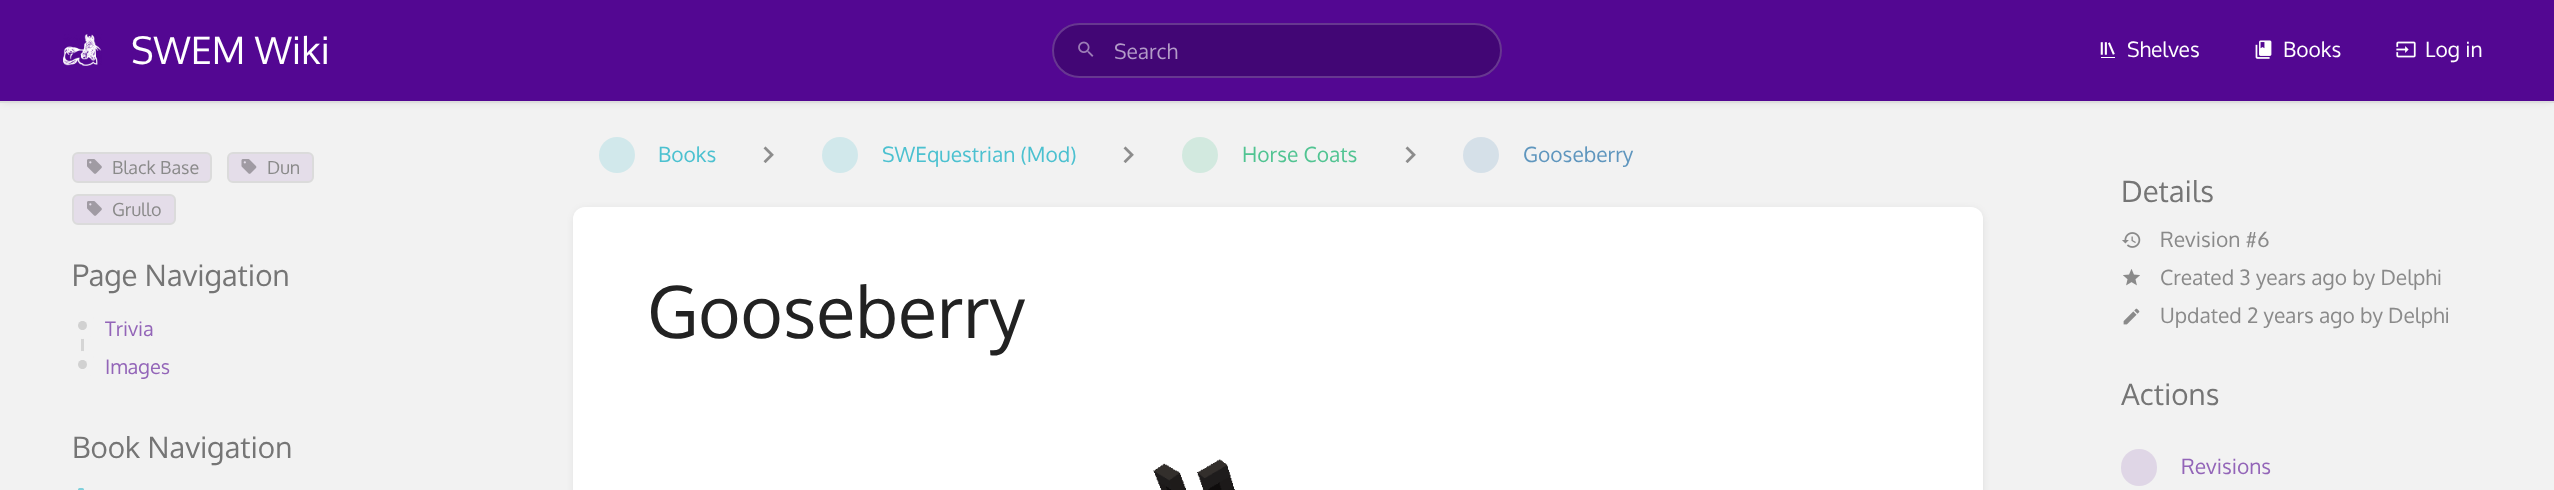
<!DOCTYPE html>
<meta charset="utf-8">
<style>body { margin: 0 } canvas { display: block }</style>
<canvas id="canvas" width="2554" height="490"></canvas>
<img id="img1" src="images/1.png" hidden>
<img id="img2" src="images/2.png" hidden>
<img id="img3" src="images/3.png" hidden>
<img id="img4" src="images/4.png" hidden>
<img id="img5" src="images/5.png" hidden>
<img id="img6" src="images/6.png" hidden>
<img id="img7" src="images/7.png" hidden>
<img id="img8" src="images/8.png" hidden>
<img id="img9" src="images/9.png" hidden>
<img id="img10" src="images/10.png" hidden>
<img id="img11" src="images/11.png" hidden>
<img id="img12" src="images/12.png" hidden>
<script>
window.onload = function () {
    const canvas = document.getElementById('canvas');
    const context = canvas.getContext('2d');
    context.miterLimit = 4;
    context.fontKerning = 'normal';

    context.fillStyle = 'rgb(242, 242, 242)';
    context.fillRect(0, 0, 2554, 490);
    context.fillStyle = 'rgba(0, 0, 0, 0.1)';
    context.filter = 'blur(4.5px)';
    context.beginPath();
    context.rect(2, 3, 2551, 99);
    context.fill();
    context.filter = 'none';
    context.fillStyle = 'rgb(83, 7, 146)';
    context.fillRect(0, 0, 2554, 101);
    context.fillStyle = 'rgb(221, 221, 221)';
    context.fillRect(0, 101, 2554, 2);
    context.drawImage(document.getElementById('img1'), 63, 34, 39, 32);
    context.fillStyle = 'rgb(66, 6, 117)';
    context.beginPath();
    context.roundRect(1052, 23, 450, 55, 27.5);
    context.fill();
    context.beginPath();
    context.roundRect(1053, 24, 448, 53, 26.5);
    context.strokeStyle = 'rgba(255, 255, 255, 0.2)';
    context.lineWidth = 2;
    context.stroke();
    context.drawImage(document.getElementById('img2'), 1078, 41, 16, 16);
    context.drawImage(document.getElementById('img3'), 2100, 42, 15, 16);
    context.drawImage(document.getElementById('img4'), 2255, 40, 17, 19);
    context.drawImage(document.getElementById('img5'), 2396, 41, 20, 17);
    context.fillStyle = 'rgb(209, 232, 235)';
    context.beginPath();
    context.arc(617, 155, 18, 0, 2 * Math.PI);
    context.fill();
    context.drawImage(document.getElementById('img6'), 763, 146, 11, 17);
    context.beginPath();
    context.arc(840, 155, 18, 0, 2 * Math.PI);
    context.fill();
    context.drawImage(document.getElementById('img6'), 1123, 146, 11, 17);
    context.fillStyle = 'rgb(210, 233, 223)';
    context.beginPath();
    context.arc(1200, 155, 18, 0, 2 * Math.PI);
    context.fill();
    context.drawImage(document.getElementById('img6'), 1405, 146, 11, 17);
    context.fillStyle = 'rgb(213, 224, 232)';
    context.beginPath();
    context.arc(1481, 155, 18, 0, 2 * Math.PI);
    context.fill();
    context.fillStyle = 'rgba(0, 0, 0, 0.1)';
    context.filter = 'blur(4.5px)';
    context.beginPath();
    context.roundRect(575, 210, 1407, 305, 11);
    context.fill();
    context.filter = 'none';
    context.fillStyle = 'rgb(255, 255, 255)';
    context.beginPath();
    context.roundRect(573, 207, 1410, 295, 12);
    context.fill();
    context.drawImage(document.getElementById('img7'), 1153, 459, 82, 31);
    context.fillStyle = 'rgb(228, 221, 233)';
    context.beginPath();
    context.roundRect(73, 153, 138, 29, 5);
    context.fill();
    context.strokeStyle = 'rgb(219, 219, 219)';
    context.stroke();
    context.drawImage(document.getElementById('img8'), 87, 159, 15, 15);
    context.beginPath();
    context.roundRect(228, 153, 85, 29, 5);
    context.fill();
    context.stroke();
    context.drawImage(document.getElementById('img9'), 241, 159, 16, 15);
    context.beginPath();
    context.roundRect(73, 195, 102, 29, 5);
    context.fill();
    context.stroke();
    context.drawImage(document.getElementById('img8'), 87, 201, 15, 15);
    context.fillStyle = 'rgb(213, 213, 213)';
    context.fillRect(81, 320, 3, 54);
    context.beginPath();
    context.arc(82.5, 325.5, 9, 0, 2 * Math.PI);
    context.strokeStyle = 'rgb(242, 242, 242)';
    context.lineWidth = 9;
    context.stroke();
    context.fillStyle = 'rgb(209, 209, 209)';
    context.beginPath();
    context.arc(82.5, 325.5, 4.5, 0, 2 * Math.PI);
    context.fill();
    context.beginPath();
    context.arc(82.5, 364.5, 9, 0, 2 * Math.PI);
    context.stroke();
    context.beginPath();
    context.arc(82.5, 364.5, 4.5, 0, 2 * Math.PI);
    context.fill();
    context.fillStyle = 'rgb(128, 208, 219)';
    context.beginPath();
    context.roundRect(78, 488, 6, 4, 1.5);
    context.fill();
    context.drawImage(document.getElementById('img10'), 2122, 232, 19, 16);
    context.drawImage(document.getElementById('img11'), 2123, 269, 17, 17);
    context.drawImage(document.getElementById('img12'), 2123, 308, 17, 17);
    context.fillStyle = 'rgb(223, 214, 230)';
    context.beginPath();
    context.roundRect(2121, 449, 36, 37, 18);
    context.fill();
    context.font = '37.75px Oxygen';
    context.fillStyle = 'rgb(255, 255, 255)';
    context.fillText('SWEM Wiki', 131, 64);
    context.font = '21px Oxygen';
    context.fillStyle = 'rgb(179, 155, 200)';
    context.fillText('Search', 1114, 59);
    context.fillStyle = 'rgb(255, 255, 255)';
    context.fillText('Shelves', 2127, 57);
    context.fillText('Books', 2283, 57);
    context.fillText('Log in', 2425, 57);
    context.fillStyle = 'rgb(76, 193, 208)';
    context.fillText('Books', 658, 162);
    context.fillText('SWEquestrian (Mod)', 882, 162);
    context.fillStyle = 'rgb(81, 196, 146)';
    context.fillText('Horse Coats', 1242, 162);
    context.fillStyle = 'rgb(95, 150, 190)';
    context.fillText('Gooseberry', 1523, 162);
    context.font = '72px Oxygen';
    context.fillStyle = 'rgb(34, 34, 34)';
    context.fillText('Gooseberry', 647, 338);
    context.font = '18px Oxygen';
    context.fillStyle = 'rgb(138, 138, 138)';
    context.fillText('Black Base', 112, 174);
    context.fillText('Dun', 267, 174);
    context.fillText('Grullo', 112, 216);
    context.font = '29.5px Oxygen';
    context.fillStyle = 'rgb(117, 117, 117)';
    context.fillText('Page Navigation', 72, 286);
    context.font = '20px Oxygen';
    context.fillStyle = 'rgb(147, 101, 184)';
    context.fillText('Trivia', 105, 336);
    context.fillText('Images', 105, 374);
    context.font = '29.5px Oxygen';
    context.fillStyle = 'rgb(117, 117, 117)';
    context.fillText('Book Navigation', 72, 458);
    context.fillText('Details', 2121, 202);
    context.font = '21px Oxygen';
    context.fillStyle = 'rgb(138, 138, 138)';
    context.fillText('Revision #6', 2160, 247);
    context.fillText('Created 3 years ago by Delphi', 2160, 285);
    context.fillText('Updated 2 years ago by Delphi', 2160, 323);
    context.font = '29.5px Oxygen';
    context.fillStyle = 'rgb(117, 117, 117)';
    context.fillText('Actions', 2121, 405);
    context.font = '21px Oxygen';
    context.fillStyle = 'rgb(147, 101, 184)';
    context.fillText('Revisions', 2181, 474);
};
</script>
